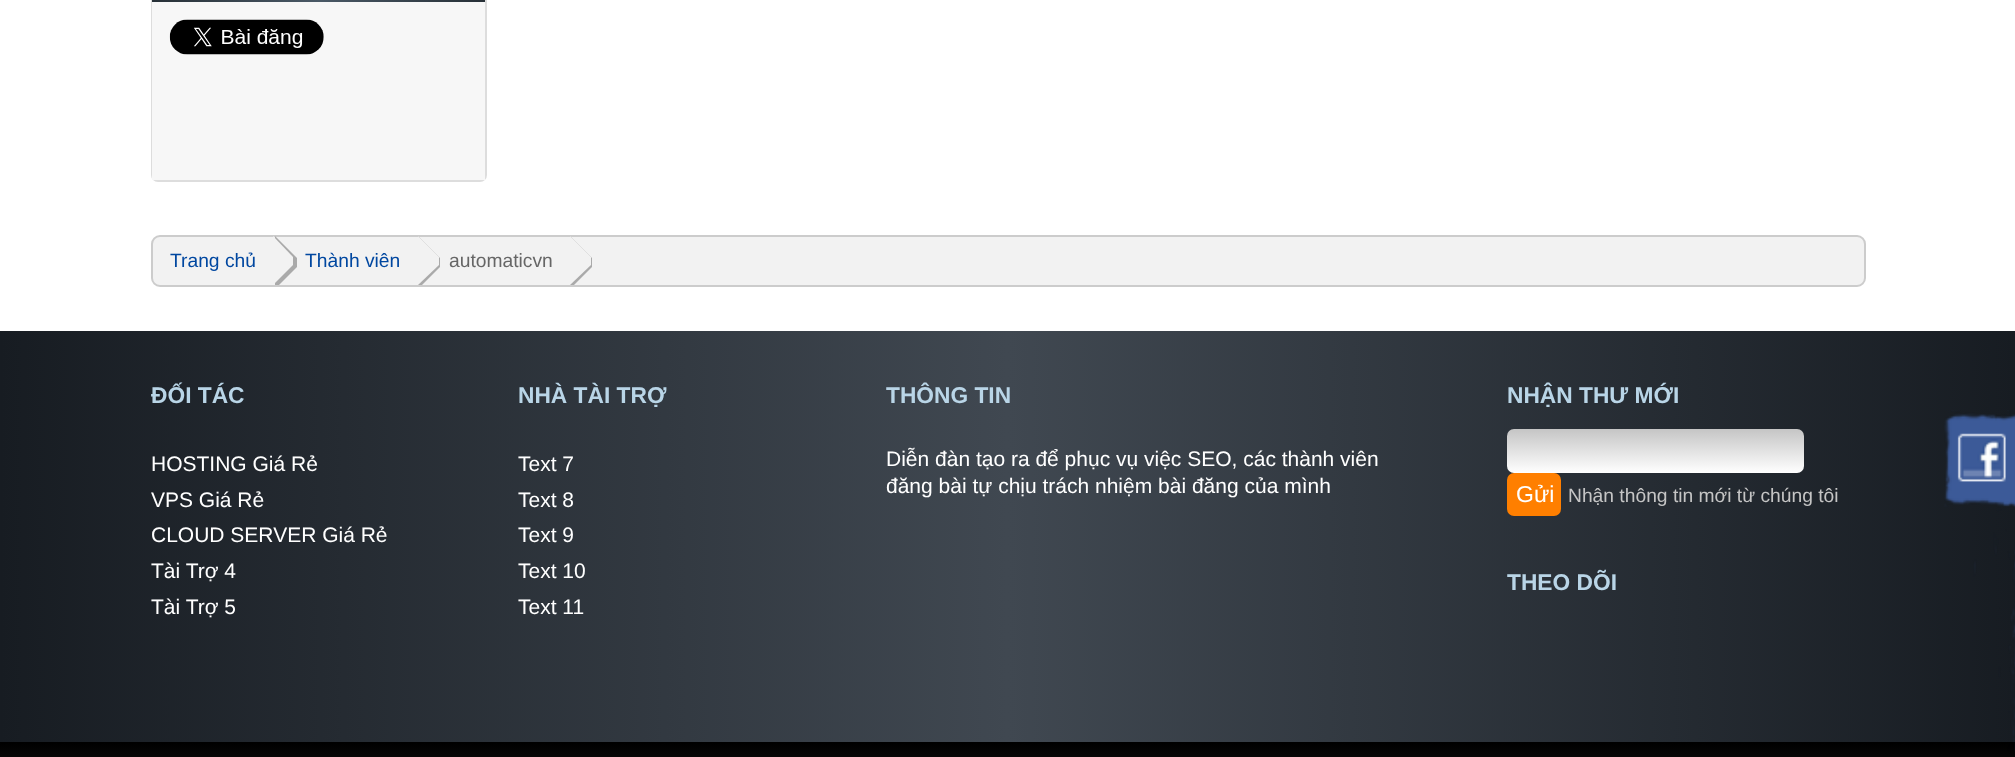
<!DOCTYPE html>
<meta charset="utf-8">
<style>body { margin: 0 } canvas { display: block }</style>
<canvas id="canvas" width="2015" height="757"></canvas>
<img id="img1" src="images/1.png" hidden>
<img id="img2" src="images/2.png" hidden>
<script>
window.onload = function () {
    const canvas = document.getElementById('canvas');
    const context = canvas.getContext('2d');
    context.miterLimit = 4;
    context.fontKerning = 'normal';
    let gradient;

    context.fillStyle = 'rgb(255, 255, 255)';
    context.fillRect(0, 0, 2015, 757);
    context.beginPath();
    context.roundRect(152, -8, 334, 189, 6);
    context.strokeStyle = 'rgb(221, 221, 221)';
    context.lineWidth = 2;
    context.stroke();
    context.fillStyle = 'rgb(247, 247, 247)';
    context.fillRect(152, 2, 333, 178);
    gradient = context.createLinearGradient(152, -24, 485, -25);
    gradient.addColorStop(0, 'rgb(39, 48, 55)');
    gradient.addColorStop(0.5, 'rgb(74, 89, 102)');
    gradient.addColorStop(1, 'rgb(39, 48, 55)');
    context.fillStyle = gradient;
    context.fillRect(152, 0, 333, 2);
    context.drawImage(document.getElementById('img1'), 169, 19, 155, 36);
    context.fillStyle = 'rgb(242, 242, 242)';
    context.beginPath();
    context.roundRect(152, 236, 1713, 50, 8);
    context.fill();
    context.strokeStyle = 'rgb(204, 204, 204)';
    context.stroke();
    context.fillStyle = 'rgb(170, 170, 170)';
    context.beginPath();
    context.moveTo(279, 285);
    context.lineTo(275, 285);
    context.lineTo(275, 236);
    context.lineTo(297, 258);
    context.lineTo(297, 267);
    context.closePath();
    context.fill();
    context.fillStyle = 'rgb(242, 242, 242)';
    context.beginPath();
    context.moveTo(273, 285);
    context.lineTo(273, 236);
    context.lineTo(293, 257);
    context.lineTo(293, 265);
    context.closePath();
    context.fill();
    context.fillStyle = 'rgb(170, 170, 170)';
    context.beginPath();
    context.moveTo(422, 285);
    context.lineTo(418, 285);
    context.lineTo(418, 236);
    context.lineTo(440, 258);
    context.lineTo(440, 267);
    context.closePath();
    context.fill();
    context.fillStyle = 'rgb(242, 242, 242)';
    context.beginPath();
    context.moveTo(418, 285);
    context.lineTo(418, 236);
    context.lineTo(439, 257);
    context.lineTo(439, 265);
    context.closePath();
    context.fill();
    context.fillStyle = 'rgb(170, 170, 170)';
    context.beginPath();
    context.moveTo(574, 285);
    context.lineTo(570, 285);
    context.lineTo(570, 236);
    context.lineTo(592, 258);
    context.lineTo(592, 267);
    context.closePath();
    context.fill();
    context.fillStyle = 'rgb(242, 242, 242)';
    context.beginPath();
    context.moveTo(570, 285);
    context.lineTo(570, 236);
    context.lineTo(591, 257);
    context.lineTo(591, 265);
    context.closePath();
    context.fill();
    gradient = context.createLinearGradient(0, 536, 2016, 536);
    gradient.addColorStop(0, 'rgb(23, 28, 34)');
    gradient.addColorStop(0.5, 'rgb(64, 72, 81)');
    gradient.addColorStop(1, 'rgb(23, 28, 34)');
    context.fillStyle = gradient;
    context.fillRect(0, 331, 2015, 411);
    gradient = context.createLinearGradient(1656, 429, 1656, 473);
    gradient.addColorStop(0, 'rgb(197, 197, 197)');
    gradient.addColorStop(1, 'rgb(255, 255, 255)');
    context.fillStyle = gradient;
    context.beginPath();
    context.roundRect(1507, 429, 297, 44, 7);
    context.fill();
    context.fillStyle = 'rgb(255, 127, 0)';
    context.beginPath();
    context.roundRect(1507, 473, 54, 43, 7);
    context.fill();
    gradient = context.createLinearGradient(1008, 742, 1008, 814);
    gradient.addColorStop(0.01, 'rgb(0, 0, 0)');
    gradient.addColorStop(1, 'rgb(31, 31, 31)');
    context.fillStyle = gradient;
    context.fillRect(0, 742, 2015, 15);
    context.drawImage(document.getElementById('img2'), 1944, 410, 71, 341);
    context.font = '19.25px Liberation Sans';
    context.fillStyle = 'rgb(0, 71, 160)';
    context.fillText('Trang chủ', 170, 267);
    context.fillText('Thành viên', 305, 267);
    context.fillStyle = 'rgb(102, 102, 102)';
    context.fillText('automaticvn', 449, 267);
    context.font = 'bold 22.75px Liberation Sans';
    context.fillStyle = 'rgb(185, 213, 231)';
    context.fillText('ĐỐI TÁC', 151, 403);
    context.font = '21px Liberation Sans';
    context.fillStyle = 'rgb(255, 255, 255)';
    context.fillText('HOSTING Giá Rẻ', 151, 471);
    context.fillText('VPS Giá Rẻ', 151, 507);
    context.fillText('CLOUD SERVER Giá Rẻ', 151, 542);
    context.fillText('Tài Trợ 4', 151, 578);
    context.fillText('Tài Trợ 5', 151, 614);
    context.font = 'bold 22.75px Liberation Sans';
    context.fillStyle = 'rgb(185, 213, 231)';
    context.fillText('NHÀ TÀI TRỢ', 518, 403);
    context.font = '21px Liberation Sans';
    context.fillStyle = 'rgb(255, 255, 255)';
    context.fillText('Text 7', 518, 471);
    context.fillText('Text 8', 518, 507);
    context.fillText('Text 9', 518, 542);
    context.fillText('Text 10', 518, 578);
    context.fillText('Text 11', 518, 614);
    context.font = 'bold 22.75px Liberation Sans';
    context.fillStyle = 'rgb(185, 213, 231)';
    context.fillText('THÔNG TIN', 886, 403);
    context.font = '21px Liberation Sans';
    context.fillStyle = 'rgb(255, 255, 255)';
    context.fillText('Diễn đàn tạo ra để phục vụ việc SEO, các thành viên', 886, 466);
    context.fillText('đăng bài tự chịu trách nhiệm bài đăng của mình', 886, 493);
    context.font = 'bold 22.75px Liberation Sans';
    context.fillStyle = 'rgb(185, 213, 231)';
    context.fillText('NHẬN THƯ MỚI', 1507, 403);
    context.font = '23px Liberation Sans';
    context.fillStyle = 'rgb(255, 255, 255)';
    context.fillText('Gửi', 1516, 502);
    context.font = '19.25px Liberation Sans';
    context.fillStyle = 'rgb(197, 197, 197)';
    context.fillText('Nhận thông tin mới từ chúng tôi', 1568, 502);
    context.font = 'bold 22.75px Liberation Sans';
    context.fillStyle = 'rgb(185, 213, 231)';
    context.fillText('THEO DÕI', 1507, 590);
};
</script>
